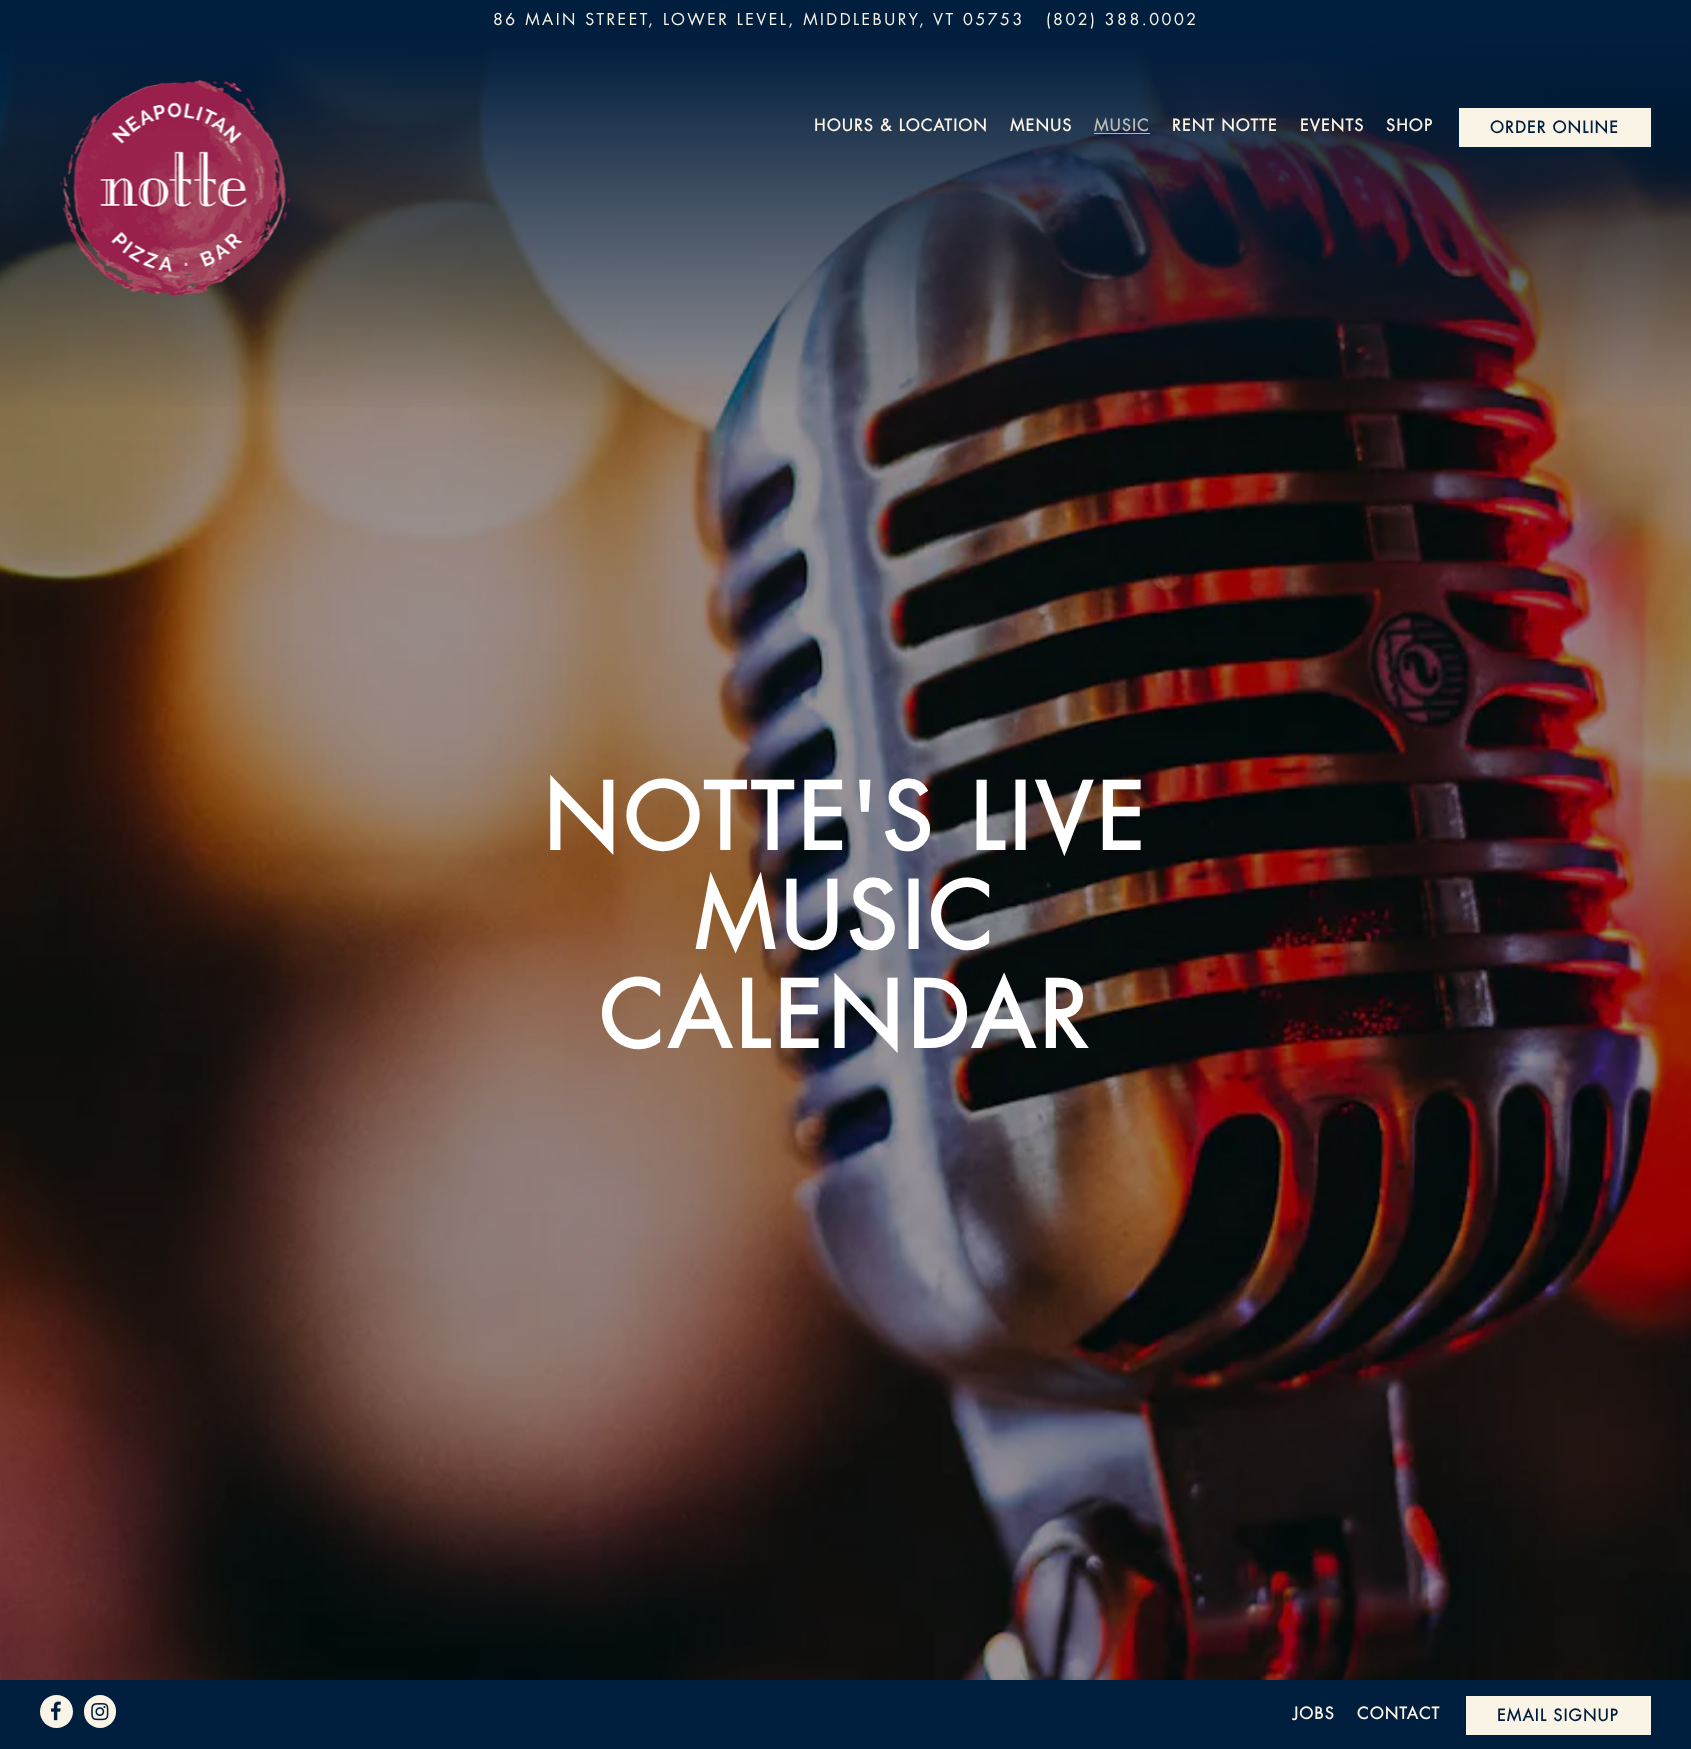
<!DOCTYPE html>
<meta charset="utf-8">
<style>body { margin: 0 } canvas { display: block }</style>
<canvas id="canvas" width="1691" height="1749"></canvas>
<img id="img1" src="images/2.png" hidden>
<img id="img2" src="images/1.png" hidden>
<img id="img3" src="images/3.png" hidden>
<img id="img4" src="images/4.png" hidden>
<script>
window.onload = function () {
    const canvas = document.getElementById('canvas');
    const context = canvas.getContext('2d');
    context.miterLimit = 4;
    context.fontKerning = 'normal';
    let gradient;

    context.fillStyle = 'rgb(255, 255, 255)';
    context.fillRect(0, 0, 1691, 1749);
    context.fillStyle = 'rgb(0, 30, 62)';
    context.fillRect(0, 0, 1691, 40);
    context.drawImage(document.getElementById('img1'), 0, 42, 1691, 1638);
    gradient = context.createLinearGradient(846, 40, 846, 415);
    gradient.addColorStop(0, 'rgb(0, 30, 62)');
    gradient.addColorStop(1, 'rgba(0, 30, 62, 0)');
    context.fillStyle = gradient;
    context.fillRect(0, 40, 1691, 367);
    context.drawImage(document.getElementById('img2'), 59, 80, 232, 216);
    context.fillStyle = 'rgba(249, 244, 230, 0.7)';
    context.fillRect(1094, 133, 56, 1);
    context.fillStyle = 'rgb(249, 244, 230)';
    context.beginPath();
    context.rect(1457.5, 106.5, 195, 42);
    context.fill();
    context.strokeStyle = 'rgb(0, 30, 62)';
    context.lineWidth = 3;
    context.stroke();
    context.fillStyle = 'rgb(0, 30, 62)';
    context.fillRect(0, 1680, 1691, 69);
    context.fillStyle = 'rgb(249, 244, 230)';
    context.beginPath();
    context.arc(56.5, 1711.5, 16.5, 0, 2 * Math.PI);
    context.fill();
    context.drawImage(document.getElementById('img3'), 51, 1701, 10, 20);
    context.beginPath();
    context.roundRect(84, 1695, 32, 33, 16);
    context.fill();
    context.drawImage(document.getElementById('img4'), 91, 1703, 18, 18);
    context.fillRect(1466, 1696, 185, 39);
    context.letterSpacing = '2.5px';
    context.font = '16px futura';
    context.fillText('86 MAIN STREET, LOWER LEVEL, MIDDLEBURY, VT 05753', 493, 25);
    context.fillText('(802) 388.0002', 1046, 25);
    context.letterSpacing = '1.25px';
    context.font = 'bold 16px futura';
    context.fillText('HOURS & LOCATION', 814, 131);
    context.fillText('MENUS', 1010, 131);
    context.fillStyle = 'rgb(184, 186, 184)';
    context.fillText('MUSIC', 1094, 131);
    context.fillStyle = 'rgb(249, 244, 230)';
    context.fillText('RENT NOTTE', 1172, 131);
    context.fillText('EVENTS', 1300, 131);
    context.fillText('SHOP', 1386, 131);
    context.fillStyle = 'rgb(0, 30, 62)';
    context.fillText('ORDER ONLINE', 1490, 133);
    context.letterSpacing = '5px';
    context.font = 'bold 90px futura';
    context.fillStyle = 'rgb(255, 255, 255)';
    context.fillText('NOTTE\'S LIVE', 543, 850);
    context.fillText('MUSIC', 694, 949);
    context.fillText('CALENDAR', 599, 1048);
    context.letterSpacing = '1.25px';
    context.font = 'bold 16px futura';
    context.fillStyle = 'rgb(249, 244, 230)';
    context.fillText('JOBS', 1293, 1719);
    context.fillText('CONTACT', 1357, 1719);
    context.fillStyle = 'rgb(0, 30, 62)';
    context.fillText('EMAIL SIGNUP', 1497, 1721);
};
</script>
